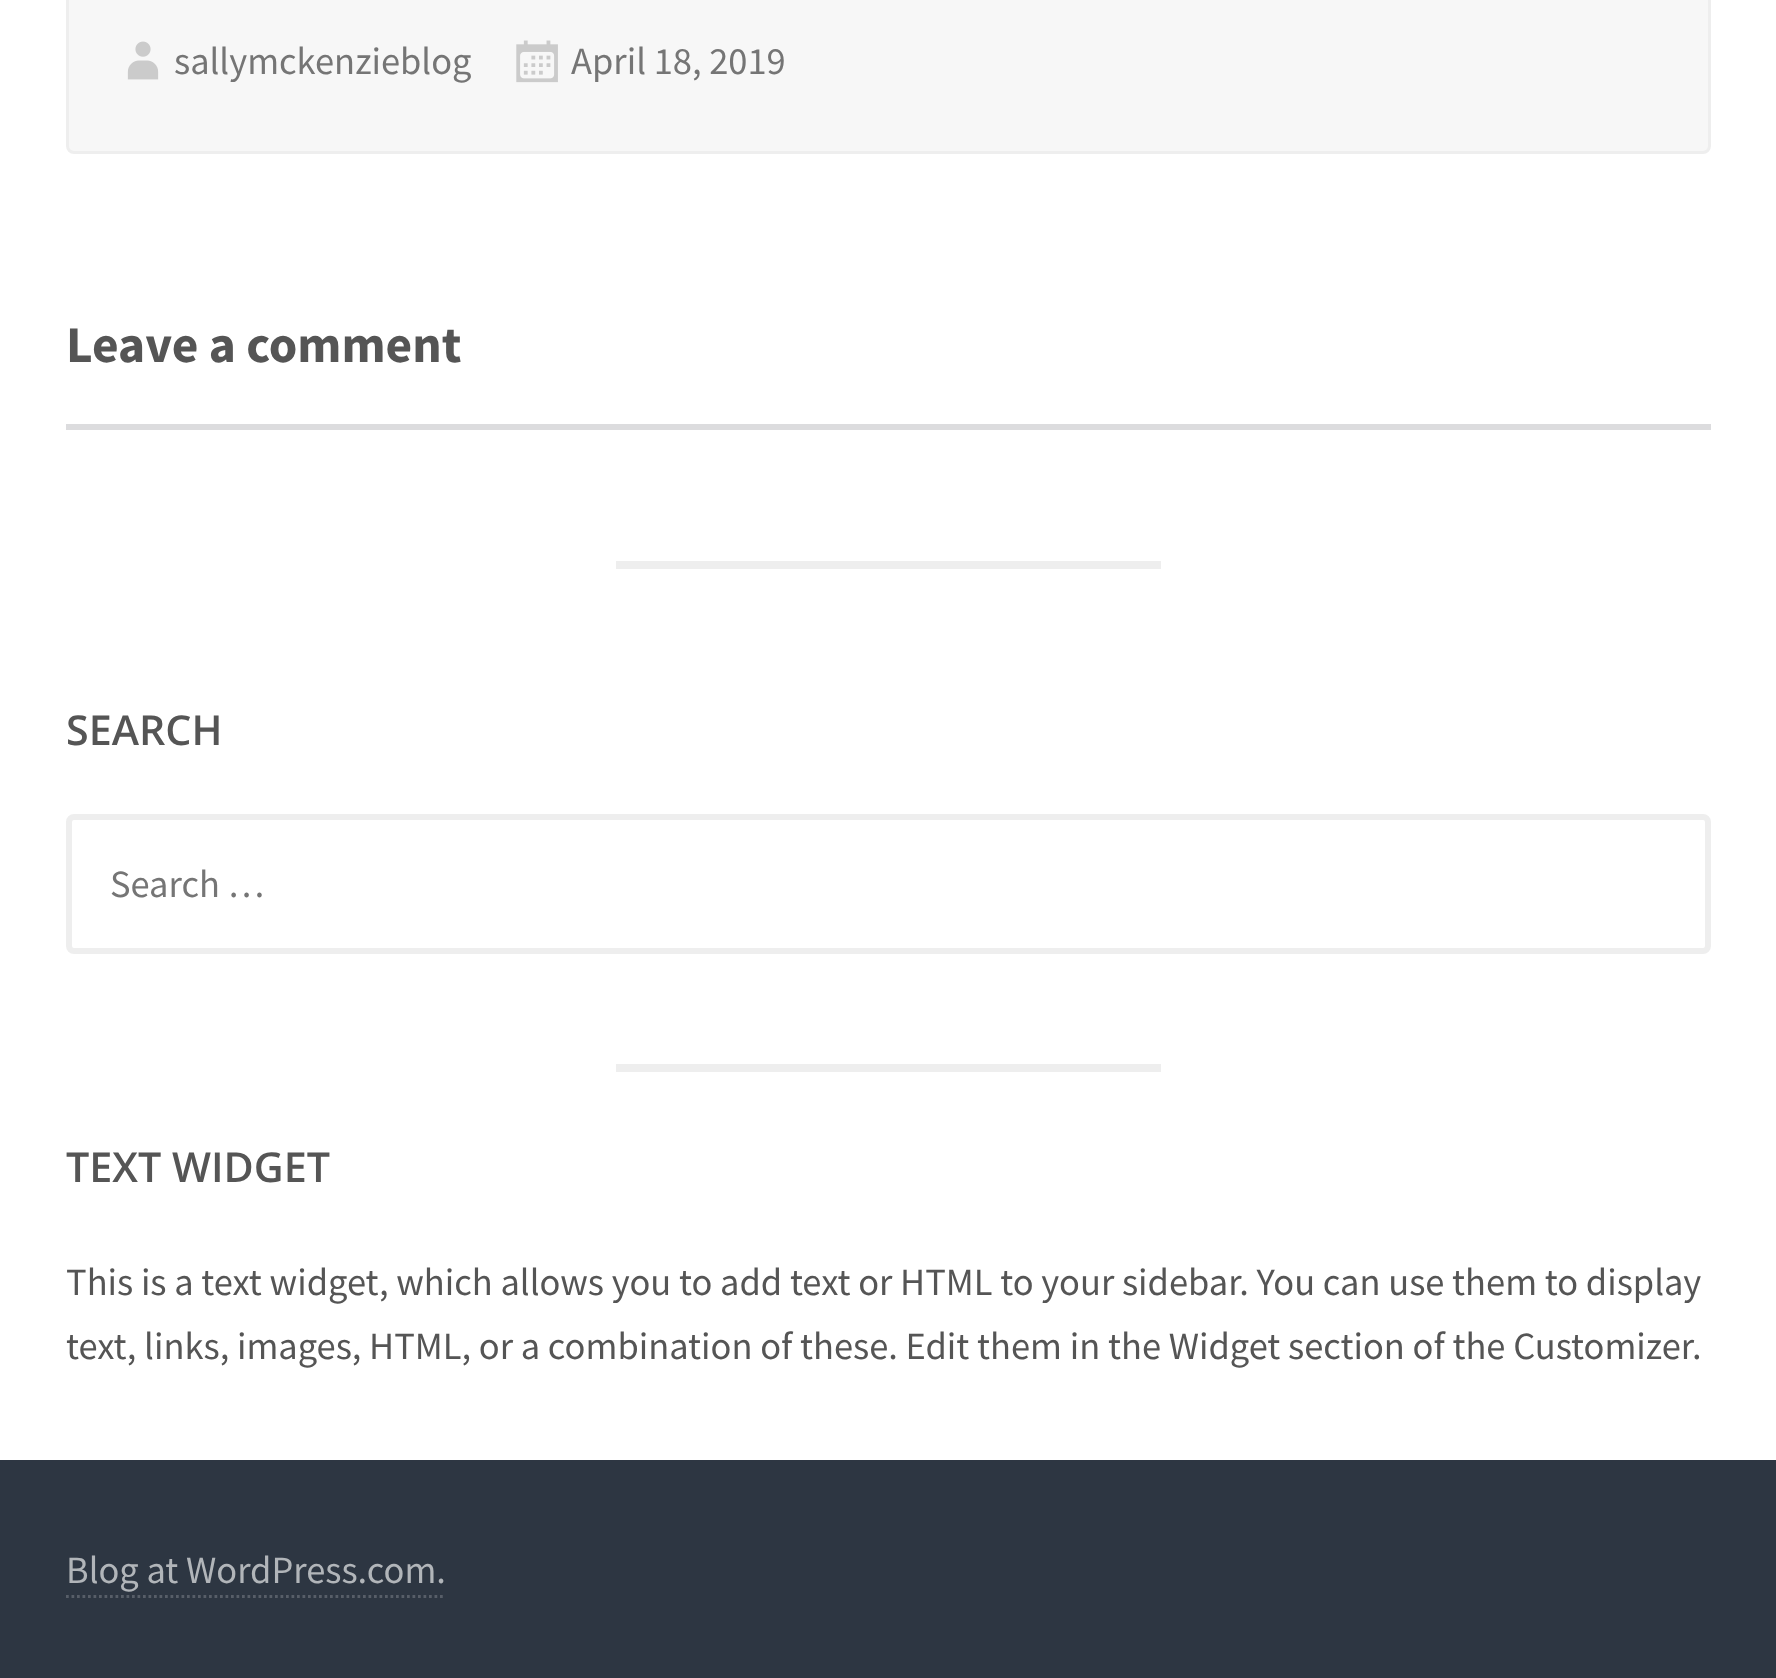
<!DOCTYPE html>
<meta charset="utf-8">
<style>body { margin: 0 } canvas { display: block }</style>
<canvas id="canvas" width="1776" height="1678"></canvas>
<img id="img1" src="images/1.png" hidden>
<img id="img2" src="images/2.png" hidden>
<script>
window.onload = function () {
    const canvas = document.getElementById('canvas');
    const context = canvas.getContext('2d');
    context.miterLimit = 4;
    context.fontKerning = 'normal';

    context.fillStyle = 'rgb(255, 255, 255)';
    context.fillRect(0, 0, 1776, 1678);
    context.fillStyle = 'rgb(247, 247, 247)';
    context.beginPath();
    context.roundRect(67.5, -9.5, 1642, 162, 6.5);
    context.fill();
    context.strokeStyle = 'rgb(238, 238, 238)';
    context.lineWidth = 3;
    context.stroke();
    context.drawImage(document.getElementById('img1'), 127, 41, 32, 39);
    context.drawImage(document.getElementById('img2'), 516, 40, 42, 43);
    context.fillStyle = 'rgb(220, 220, 222)';
    context.fillRect(66, 424, 1645, 6);
    context.fillStyle = 'rgb(238, 238, 238)';
    context.fillRect(616, 561, 545, 8);
    context.beginPath();
    context.roundRect(69, 817, 1639, 134, 5);
    context.lineWidth = 6;
    context.stroke();
    context.fillRect(616, 1064, 545, 8);
    context.fillStyle = 'rgb(45, 54, 66)';
    context.fillRect(0, 1460, 1776, 218);
    context.beginPath();
    context.moveTo(66, 1596.5);
    context.lineTo(445.5, 1596.5);
    context.strokeStyle = 'rgb(87, 94, 104)';
    context.lineWidth = 2.8;
    context.setLineDash([2.75, 2.75]);
    context.stroke();
    context.font = '38.5px Source Sans Pro';
    context.fillStyle = 'rgb(117, 117, 117)';
    context.fillText('sallymckenzieblog', 174, 74);
    context.fillText('April 18, 2019', 571, 74);
    context.font = 'bold 51.5px Source Sans Pro';
    context.fillStyle = 'rgb(85, 85, 85)';
    context.fillText('Leave a comment', 66, 362);
    context.font = '600 41.25px Open Sans';
    context.fillText('SEARCH', 66, 745);
    context.font = '38.5px Source Sans Pro';
    context.fillStyle = 'rgb(117, 117, 117)';
    context.fillText('Search …', 110, 897);
    context.font = '600 41.25px Open Sans';
    context.fillStyle = 'rgb(85, 85, 85)';
    context.fillText('TEXT WIDGET', 66, 1182);
    context.font = '38.5px Source Sans Pro';
    context.fillText('This is a text widget, which allows you to add text or HTML to your sidebar. You can use them to display', 66, 1295);
    context.fillText('text, links, images, HTML, or a combination of these. Edit them in the Widget section of the Customizer', 66, 1359);
    context.fillText('.', 1692, 1359);
    context.fillStyle = 'rgb(177, 181, 185)';
    context.fillText('Blog at WordPress.com.', 66, 1583);
};
</script>
